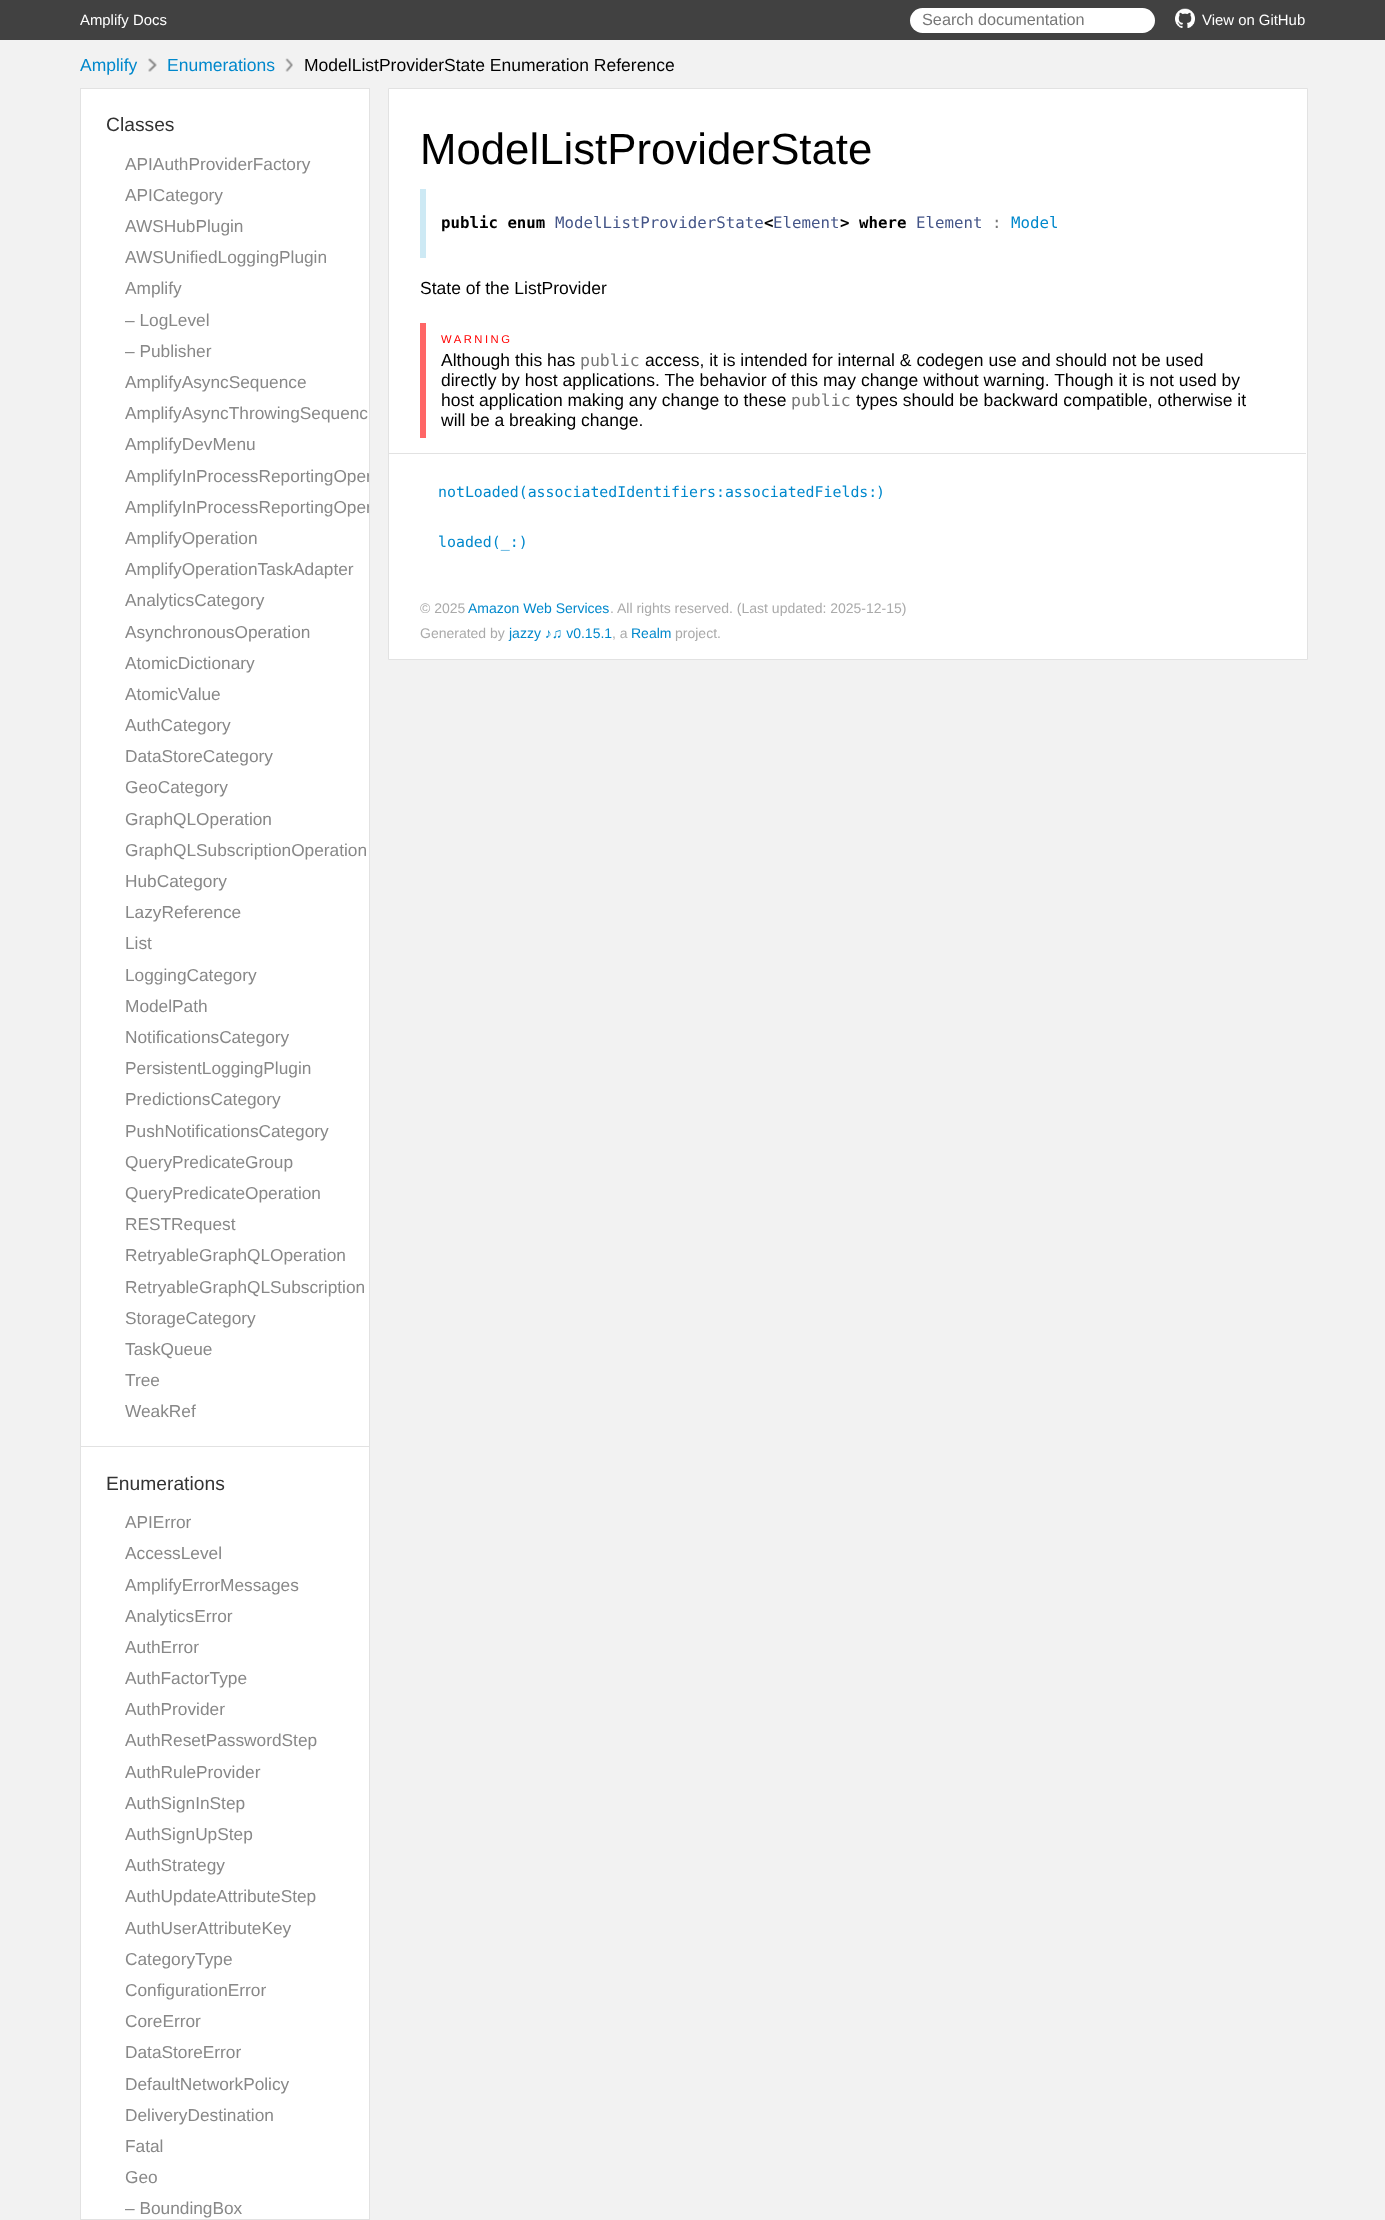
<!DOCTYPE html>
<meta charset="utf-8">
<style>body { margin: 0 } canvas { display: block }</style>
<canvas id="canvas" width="1385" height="2220"></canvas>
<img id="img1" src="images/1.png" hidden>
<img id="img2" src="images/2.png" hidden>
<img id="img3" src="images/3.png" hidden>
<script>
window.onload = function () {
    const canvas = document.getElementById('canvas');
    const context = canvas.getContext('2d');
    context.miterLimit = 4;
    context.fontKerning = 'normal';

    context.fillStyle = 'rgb(242, 242, 242)';
    context.fillRect(0, 0, 1385, 2220);
    context.fillStyle = 'rgb(65, 65, 65)';
    context.fillRect(0, 0, 1385, 40);
    context.fillStyle = 'rgb(255, 255, 255)';
    context.beginPath();
    context.roundRect(910, 8, 245, 25, 12.5);
    context.fill();
    context.drawImage(document.getElementById('img1'), 1175, 8, 20, 20);
    context.drawImage(document.getElementById('img2'), 148, 58, 9, 14);
    context.drawImage(document.getElementById('img3'), 285, 58, 8, 14);
    context.strokeStyle = 'rgb(226, 226, 226)';
    context.strokeRect(80.5, 88.5, 289, 2131);
    context.fillRect(81, 89, 288, 2130);
    context.fillStyle = 'rgb(226, 226, 226)';
    context.fillRect(81, 1446, 288, 1);
    context.fillStyle = 'rgb(255, 255, 255)';
    context.beginPath();
    context.rect(388.5, 88.5, 919, 571);
    context.fill();
    context.stroke();
    context.fillStyle = 'rgb(205, 233, 244)';
    context.fillRect(420, 189, 6, 69);
    context.fillStyle = 'rgb(255, 102, 102)';
    context.fillRect(420, 323, 6, 115);
    context.fillStyle = 'rgb(226, 226, 226)';
    context.fillRect(389, 453, 917, 1);
    context.font = '14.9px Liberation Sans';
    context.fillStyle = 'rgb(255, 255, 255)';
    context.fillText('Amplify Docs', 80, 25);
    context.font = '16.25px Liberation Sans';
    context.fillStyle = 'rgb(119, 119, 119)';
    context.fillText('Search documentation', 922, 25);
    context.font = '14.9px Liberation Sans';
    context.fillStyle = 'rgb(255, 255, 255)';
    context.fillText('View on GitHub', 1202, 25);
    context.font = '17.5px Liberation Sans';
    context.fillStyle = 'rgb(0, 136, 204)';
    context.fillText('Amplify', 80, 71);
    context.fillText('Enumerations', 167, 71);
    context.fillStyle = 'rgb(0, 0, 0)';
    context.fillText('ModelListProviderState Enumeration Reference', 304, 71);
    context.font = '19.25px Liberation Sans';
    context.fillStyle = 'rgb(51, 51, 51)';
    context.fillText('Classes', 106, 131);
    context.font = '17.3px Liberation Sans';
    context.fillStyle = 'rgb(136, 136, 136)';
    context.fillText('APIAuthProviderFactory', 125, 170);
    context.fillText('APICategory', 125, 201);
    context.fillText('AWSHubPlugin', 125, 232);
    context.fillText('AWSUnifiedLoggingPlugin', 125, 263);
    context.fillText('Amplify', 125, 294);
    context.fillText('– LogLevel', 125, 326);
    context.fillText('– Publisher', 125, 357);
    context.fillText('AmplifyAsyncSequence', 125, 388);
    context.fillText('AmplifyAsyncThrowingSequenc', 125, 419);
    context.fillText('AmplifyDevMenu', 125, 450);
    context.save();
    context.beginPath();
    context.rect(81, 89, 288, 2130);
    context.clip();
    context.fillText('AmplifyInProcessReportingOper', 125, 482);
    context.fillText('AmplifyInProcessReportingOper', 125, 513);
    context.restore();
    context.fillText('AmplifyOperation', 125, 544);
    context.fillText('AmplifyOperationTaskAdapter', 125, 575);
    context.fillText('AnalyticsCategory', 125, 606);
    context.fillText('AsynchronousOperation', 125, 638);
    context.fillText('AtomicDictionary', 125, 669);
    context.fillText('AtomicValue', 125, 700);
    context.fillText('AuthCategory', 125, 731);
    context.fillText('DataStoreCategory', 125, 762);
    context.fillText('GeoCategory', 125, 793);
    context.fillText('GraphQLOperation', 125, 825);
    context.fillText('GraphQLSubscriptionOperation', 125, 856);
    context.fillText('HubCategory', 125, 887);
    context.fillText('LazyReference', 125, 918);
    context.fillText('List', 125, 949);
    context.fillText('LoggingCategory', 125, 981);
    context.fillText('ModelPath', 125, 1012);
    context.fillText('NotificationsCategory', 125, 1043);
    context.fillText('PersistentLoggingPlugin', 125, 1074);
    context.fillText('PredictionsCategory', 125, 1105);
    context.fillText('PushNotificationsCategory', 125, 1137);
    context.fillText('QueryPredicateGroup', 125, 1168);
    context.fillText('QueryPredicateOperation', 125, 1199);
    context.fillText('RESTRequest', 125, 1230);
    context.fillText('RetryableGraphQLOperation', 125, 1261);
    context.fillText('RetryableGraphQLSubscription', 125, 1293);
    context.fillText('StorageCategory', 125, 1324);
    context.fillText('TaskQueue', 125, 1355);
    context.fillText('Tree', 125, 1386);
    context.fillText('WeakRef', 125, 1417);
    context.font = '19.25px Liberation Sans';
    context.fillStyle = 'rgb(51, 51, 51)';
    context.fillText('Enumerations', 106, 1490);
    context.font = '17.3px Liberation Sans';
    context.fillStyle = 'rgb(136, 136, 136)';
    context.fillText('APIError', 125, 1528);
    context.fillText('AccessLevel', 125, 1559);
    context.fillText('AmplifyErrorMessages', 125, 1591);
    context.fillText('AnalyticsError', 125, 1622);
    context.fillText('AuthError', 125, 1653);
    context.fillText('AuthFactorType', 125, 1684);
    context.fillText('AuthProvider', 125, 1715);
    context.fillText('AuthResetPasswordStep', 125, 1746);
    context.fillText('AuthRuleProvider', 125, 1778);
    context.fillText('AuthSignInStep', 125, 1809);
    context.fillText('AuthSignUpStep', 125, 1840);
    context.fillText('AuthStrategy', 125, 1871);
    context.fillText('AuthUpdateAttributeStep', 125, 1902);
    context.fillText('AuthUserAttributeKey', 125, 1934);
    context.fillText('CategoryType', 125, 1965);
    context.fillText('ConfigurationError', 125, 1996);
    context.fillText('CoreError', 125, 2027);
    context.fillText('DataStoreError', 125, 2058);
    context.fillText('DefaultNetworkPolicy', 125, 2090);
    context.fillText('DeliveryDestination', 125, 2121);
    context.fillText('Fatal', 125, 2152);
    context.fillText('Geo', 125, 2183);
    context.fillText('– BoundingBox', 125, 2214);
    context.font = '43.75px Liberation Sans';
    context.fillStyle = 'rgb(0, 0, 0)';
    context.fillText('ModelListProviderState', 420, 164);
    context.font = 'bold 15.75px DejaVu Sans Mono';
    context.fillText('public enum', 441, 228);
    context.font = '15.75px DejaVu Sans Mono';
    context.fillStyle = 'rgb(68, 85, 136)';
    context.fillText('ModelListProviderState Element', 555, 228);
    context.font = 'bold 15.75px DejaVu Sans Mono';
    context.fillStyle = 'rgb(0, 0, 0)';
    context.fillText('> where', 840, 228);
    context.font = '15.75px DejaVu Sans Mono';
    context.fillStyle = 'rgb(68, 85, 136)';
    context.fillText('Element', 916, 228);
    context.fillStyle = 'rgb(0, 136, 204)';
    context.fillText('Model', 1011, 228);
    context.font = 'bold 15.75px DejaVu Sans Mono';
    context.fillStyle = 'rgb(0, 0, 0)';
    context.fillText('<', 764, 228);
    context.font = '15.75px DejaVu Sans Mono';
    context.fillStyle = 'rgb(119, 119, 119)';
    context.fillText(':', 992, 228);
    context.font = '17.5px Liberation Sans';
    context.fillStyle = 'rgb(0, 0, 0)';
    context.fillText('State of the ListProvider', 420, 294);
    context.letterSpacing = '2.5px';
    context.font = '11.25px Liberation Sans';
    context.fillStyle = 'rgb(255, 0, 0)';
    context.fillText('WARNING', 441, 343);
    context.letterSpacing = '0px';
    context.font = '17.5px Liberation Sans';
    context.fillStyle = 'rgb(0, 0, 0)';
    context.fillText('Although this has', 441, 366);
    context.font = '16.5px DejaVu Sans Mono';
    context.fillStyle = 'rgb(119, 119, 119)';
    context.fillText('public', 580, 366);
    context.font = '17.5px Liberation Sans';
    context.fillStyle = 'rgb(0, 0, 0)';
    context.fillText('access, it is intended for internal & codegen use and should not be used', 645, 366);
    context.fillText('directly by host applications. The behavior of this may change without warning. Though it is not used by', 441, 386);
    context.fillText('host application making any change to these', 441, 406);
    context.font = '16.5px DejaVu Sans Mono';
    context.fillStyle = 'rgb(119, 119, 119)';
    context.fillText('public', 791, 406);
    context.font = '17.5px Liberation Sans';
    context.fillStyle = 'rgb(0, 0, 0)';
    context.fillText('types should be backward compatible, otherwise it', 856, 406);
    context.fillText('will be a breaking change.', 441, 426);
    context.font = '14.9px DejaVu Sans Mono';
    context.fillStyle = 'rgb(0, 136, 204)';
    context.fillText('notLoaded(associatedIdentifiers:associatedFields:', 438, 497);
    context.fillText(')', 876, 497);
    context.fillText('loaded(_:)', 438, 547);
    context.font = '14px Liberation Sans';
    context.fillStyle = 'rgb(170, 170, 170)';
    context.fillText('© 2025', 420, 613);
    context.fillStyle = 'rgb(0, 136, 204)';
    context.fillText('Amazon Web Services', 468, 613);
    context.fillStyle = 'rgb(170, 170, 170)';
    context.fillText('. All rights reserved. (Last updated: 2025-12-15)', 610, 613);
    context.fillText('Generated by', 420, 638);
    context.fillStyle = 'rgb(0, 136, 204)';
    context.fillText('jazzy ♪♫ v0.15.1', 509, 638);
    context.fillStyle = 'rgb(170, 170, 170)';
    context.fillText(', a', 612, 638);
    context.fillStyle = 'rgb(0, 136, 204)';
    context.fillText('Realm', 631, 638);
    context.fillStyle = 'rgb(170, 170, 170)';
    context.fillText('project.', 675, 638);
};
</script>
